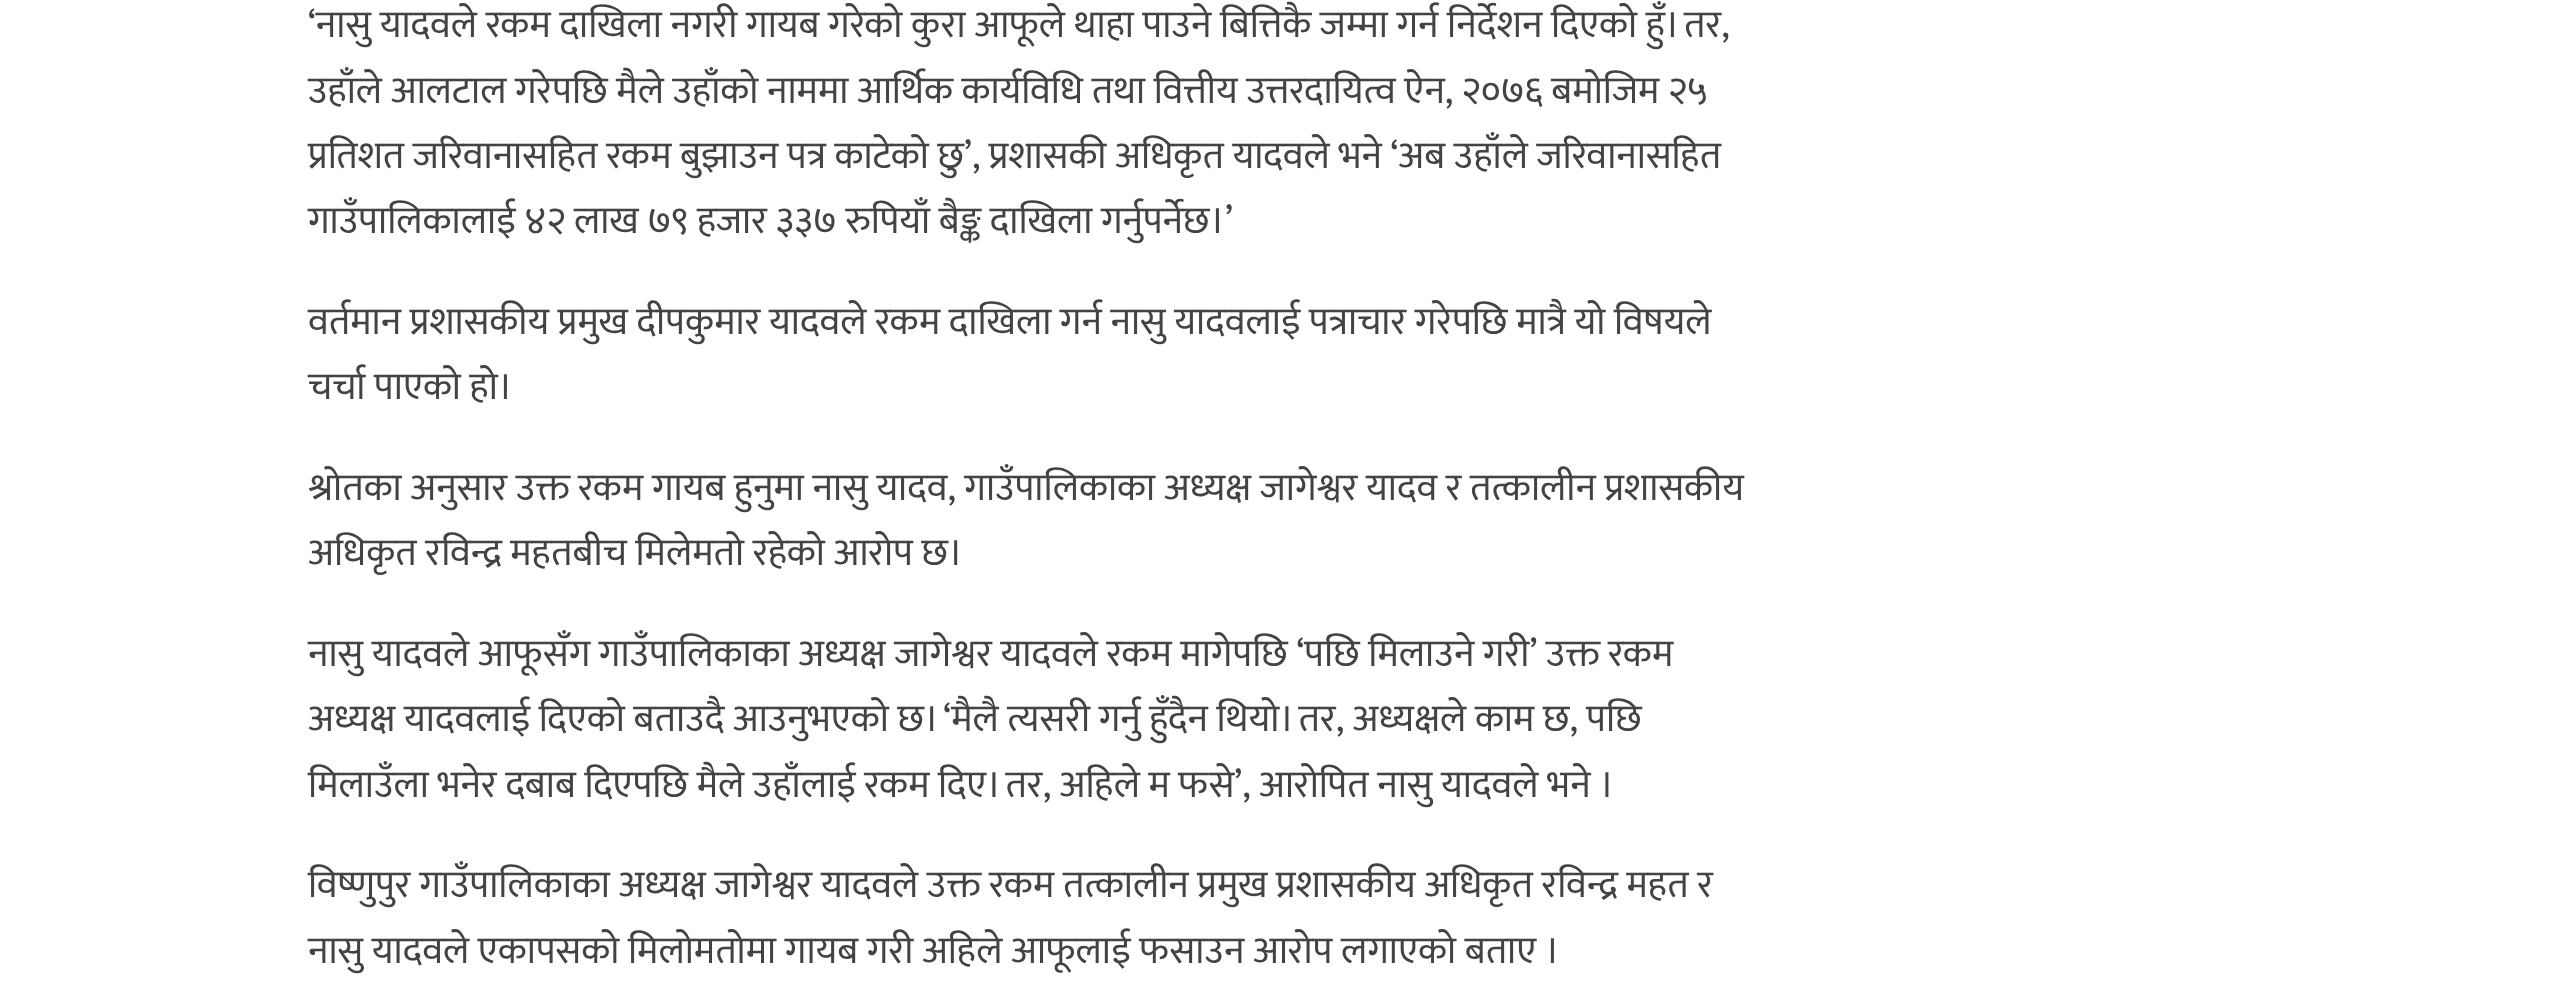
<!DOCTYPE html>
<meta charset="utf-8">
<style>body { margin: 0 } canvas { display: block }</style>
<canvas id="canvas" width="2557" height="984"></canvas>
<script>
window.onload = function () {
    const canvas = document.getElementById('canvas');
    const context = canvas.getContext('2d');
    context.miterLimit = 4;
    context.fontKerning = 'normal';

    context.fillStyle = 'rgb(255, 255, 255)';
    context.fillRect(0, 0, 2557, 984);
    context.font = '38.5px Ek Mukta';
    context.fillStyle = 'rgb(67, 67, 67)';
    context.fillText('‘नासु यादवले रकम दाखिला नगरी गायब गरेको कुरा आफूले थाहा पाउने बित्तिकै जम्मा गर्न निर्देशन दिएको हुँ। तर,', 308, 37);
    context.fillText('उहाँले आलटाल गरेपछि मैले उहाँको नाममा आर्थिक कार्यविधि तथा वित्तीय उत्तरदायित्व ऐन, २०७६ बमोजिम २५', 308, 103);
    context.fillText('प्रतिशत जरिवानासहित रकम बुझाउन पत्र काटेको छु’, प्रशासकी अधिकृत यादवले भने ‘अब उहाँले जरिवानासहित', 308, 168);
    context.fillText('गाउँपालिकालाई ४२ लाख ७९ हजार ३३७ रुपियाँ बैङ्क दाखिला गर्नुपर्नेछ।’', 308, 233);
    context.fillText('वर्तमान प्रशासकीय प्रमुख दीपकुमार यादवले रकम दाखिला गर्न नासु यादवलाई पत्राचार गरेपछि मात्रै यो विषयले', 308, 334);
    context.fillText('चर्चा पाएको हो।', 308, 399);
    context.fillText('श्रोतका अनुसार उक्त रकम गायब हुनुमा नासु यादव, गाउँपालिकाका अध्यक्ष जागेश्वर यादव र तत्कालीन प्रशासकीय', 308, 500);
    context.fillText('अधिकृत रविन्द्र महतबीच मिलेमतो रहेको आरोप छ।', 308, 565);
    context.fillText('नासु यादवले आफूसँग गाउँपालिकाका अध्यक्ष जागेश्वर यादवले रकम मागेपछि ‘पछि मिलाउने गरी’ उक्त रकम', 308, 666);
    context.fillText('अध्यक्ष यादवलाई दिएको बताउदै आउनुभएको छ। ‘मैलै त्यसरी गर्नु हुँदैन थियो। तर, अध्यक्षले काम छ, पछि', 308, 731);
    context.fillText('मिलाउँला भनेर दबाब दिएपछि मैले उहाँलाई रकम दिए। तर, अहिले म फसे’, आरोपित नासु यादवले भने ।', 308, 797);
    context.fillText('विष्णुपुर गाउँपालिकाका अध्यक्ष जागेश्वर यादवले उक्त रकम तत्कालीन प्रमुख प्रशासकीय अधिकृत रविन्द्र महत र', 308, 897);
    context.fillText('नासु यादवले एकापसको मिलोमतोमा गायब गरी अहिले आफूलाई फसाउन आरोप लगाएको बताए ।', 308, 963);
};
</script>
